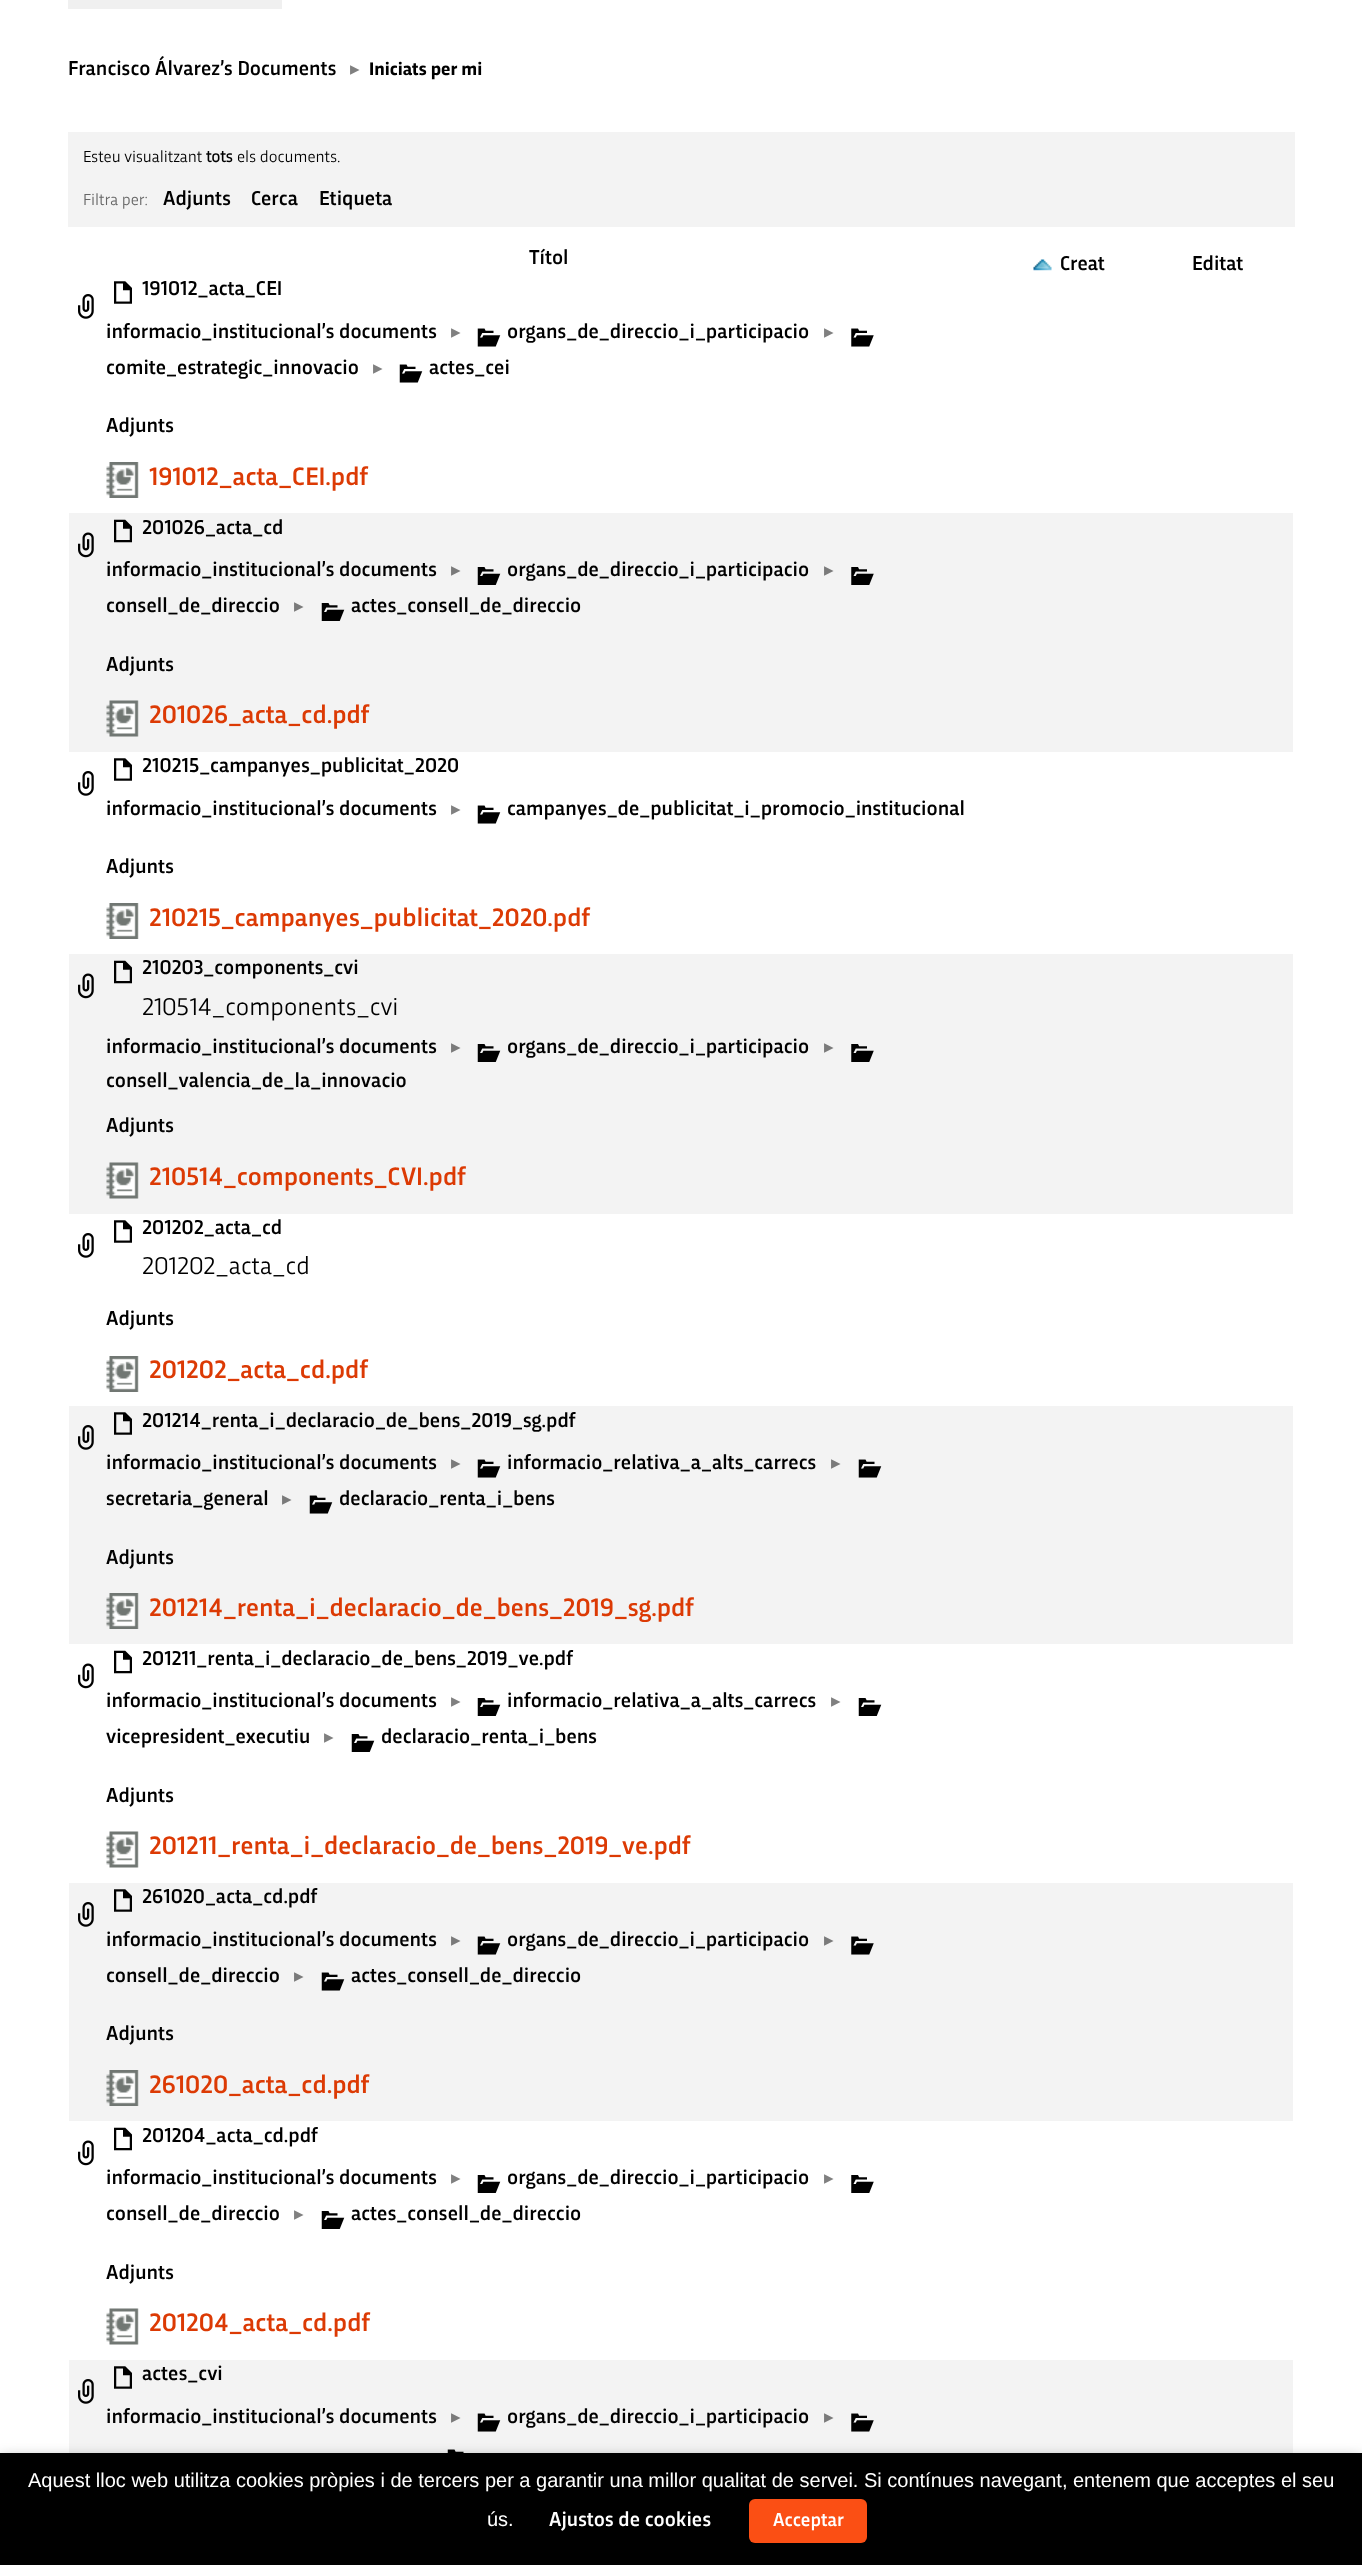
<!DOCTYPE html>
<meta charset="utf-8">
<style>body { margin: 0 } canvas { display: block }</style>
<canvas id="canvas" width="1362" height="2565"></canvas>
<img id="img1" src="images/1.png" hidden>
<img id="img2" src="images/2.png" hidden>
<img id="img3" src="images/3.png" hidden>
<img id="img4" src="images/4.png" hidden>
<img id="img5" src="images/5.png" hidden>
<img id="img6" src="images/6.png" hidden>
<img id="img7" src="images/7.png" hidden>
<img id="img8" src="images/8.png" hidden>
<img id="img9" src="images/9.png" hidden>
<img id="img10" src="images/10.png" hidden>
<img id="img11" src="images/11.png" hidden>
<img id="img12" src="images/12.png" hidden>
<img id="img13" src="images/13.png" hidden>
<img id="img14" src="images/14.png" hidden>
<img id="img15" src="images/15.png" hidden>
<img id="img16" src="images/16.png" hidden>
<img id="img17" src="images/17.png" hidden>
<img id="img18" src="images/18.png" hidden>
<img id="img19" src="images/19.png" hidden>
<img id="img20" src="images/20.png" hidden>
<img id="img21" src="images/21.png" hidden>
<img id="img22" src="images/22.png" hidden>
<script>
window.onload = function () {
    const canvas = document.getElementById('canvas');
    const context = canvas.getContext('2d');
    context.miterLimit = 4;
    context.fontKerning = 'normal';

    context.fillStyle = 'rgb(255, 255, 255)';
    context.fillRect(0, 0, 1362, 2565);
    context.fillStyle = 'rgb(240, 240, 240)';
    context.fillRect(68, 0, 214, 9);
    context.fillStyle = 'rgb(243, 243, 243)';
    context.fillRect(68, 132, 1227, 95);
    context.drawImage(document.getElementById('img1'), 1033, 259, 19, 12);
    context.drawImage(document.getElementById('img2'), 78, 294, 16, 25);
    context.drawImage(document.getElementById('img3'), 114, 281, 18, 23);
    context.drawImage(document.getElementById('img4'), 477, 328, 24, 19);
    context.drawImage(document.getElementById('img5'), 851, 328, 23, 19);
    context.drawImage(document.getElementById('img4'), 399, 364, 24, 19);
    context.drawImage(document.getElementById('img6'), 106, 462, 33, 36);
    context.fillRect(69, 513, 1224, 239);
    context.drawImage(document.getElementById('img7'), 78, 532, 16, 26);
    context.drawImage(document.getElementById('img8'), 114, 519, 18, 24);
    context.drawImage(document.getElementById('img9'), 477, 567, 24, 18);
    context.drawImage(document.getElementById('img10'), 851, 567, 23, 18);
    context.drawImage(document.getElementById('img9'), 321, 603, 24, 18);
    context.drawImage(document.getElementById('img11'), 106, 700, 33, 37);
    context.drawImage(document.getElementById('img2'), 78, 771, 16, 25);
    context.drawImage(document.getElementById('img3'), 114, 758, 18, 23);
    context.drawImage(document.getElementById('img4'), 477, 805, 24, 19);
    context.drawImage(document.getElementById('img6'), 106, 903, 33, 36);
    context.fillRect(69, 954, 1224, 260);
    context.drawImage(document.getElementById('img7'), 78, 973, 16, 26);
    context.drawImage(document.getElementById('img8'), 114, 960, 18, 24);
    context.drawImage(document.getElementById('img9'), 477, 1044, 24, 18);
    context.drawImage(document.getElementById('img10'), 851, 1044, 23, 18);
    context.drawImage(document.getElementById('img11'), 106, 1162, 33, 37);
    context.drawImage(document.getElementById('img2'), 78, 1233, 16, 25);
    context.drawImage(document.getElementById('img3'), 114, 1220, 18, 23);
    context.drawImage(document.getElementById('img6'), 106, 1356, 33, 36);
    context.fillRect(69, 1406, 1224, 238);
    context.drawImage(document.getElementById('img12'), 78, 1425, 16, 25);
    context.drawImage(document.getElementById('img13'), 114, 1412, 18, 23);
    context.drawImage(document.getElementById('img14'), 477, 1459, 24, 19);
    context.drawImage(document.getElementById('img14'), 858, 1459, 24, 19);
    context.drawImage(document.getElementById('img14'), 309, 1495, 24, 19);
    context.drawImage(document.getElementById('img15'), 106, 1593, 33, 36);
    context.drawImage(document.getElementById('img16'), 78, 1663, 16, 26);
    context.drawImage(document.getElementById('img17'), 114, 1650, 18, 24);
    context.drawImage(document.getElementById('img18'), 477, 1698, 24, 18);
    context.drawImage(document.getElementById('img18'), 858, 1698, 24, 18);
    context.drawImage(document.getElementById('img18'), 351, 1734, 24, 18);
    context.drawImage(document.getElementById('img19'), 106, 1831, 33, 37);
    context.fillRect(69, 1883, 1224, 238);
    context.drawImage(document.getElementById('img12'), 78, 1902, 16, 25);
    context.drawImage(document.getElementById('img13'), 114, 1889, 18, 23);
    context.drawImage(document.getElementById('img14'), 477, 1936, 24, 19);
    context.drawImage(document.getElementById('img20'), 851, 1936, 23, 19);
    context.drawImage(document.getElementById('img14'), 321, 1972, 24, 19);
    context.drawImage(document.getElementById('img15'), 106, 2070, 33, 36);
    context.drawImage(document.getElementById('img16'), 78, 2140, 16, 26);
    context.drawImage(document.getElementById('img17'), 114, 2127, 18, 24);
    context.drawImage(document.getElementById('img18'), 477, 2175, 24, 18);
    context.drawImage(document.getElementById('img21'), 851, 2175, 23, 18);
    context.drawImage(document.getElementById('img18'), 321, 2211, 24, 18);
    context.drawImage(document.getElementById('img19'), 106, 2308, 33, 37);
    context.fillRect(69, 2360, 1224, 93);
    context.drawImage(document.getElementById('img12'), 78, 2379, 16, 25);
    context.drawImage(document.getElementById('img13'), 114, 2366, 18, 23);
    context.drawImage(document.getElementById('img14'), 477, 2413, 24, 19);
    context.drawImage(document.getElementById('img20'), 851, 2413, 23, 19);
    context.drawImage(document.getElementById('img22'), 447, 2449, 17, 4);
    context.fillStyle = 'rgba(0, 0, 0, 0.5)';
    context.filter = 'blur(7.5px)';
    context.beginPath();
    context.rect(0, 2460, 1362, 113);
    context.fill();
    context.filter = 'none';
    context.fillStyle = 'rgb(0, 0, 0)';
    context.fillRect(0, 2453, 1362, 112);
    context.fillStyle = 'rgb(251, 79, 20)';
    context.beginPath();
    context.roundRect(749, 2499, 118, 44, 6);
    context.fill();
    context.font = '500 21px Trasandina';
    context.fillStyle = 'rgb(0, 0, 0)';
    context.fillText('Francisco Álvarez’s Documents', 68, 75);
    context.font = '19px DejaVu Sans';
    context.fillStyle = 'rgb(128, 128, 128)';
    context.fillText('▸', 350, 75);
    context.font = 'bold 19px Trasandina';
    context.fillStyle = 'rgb(0, 0, 0)';
    context.fillText('Iniciats per mi', 369, 75);
    context.font = '16.75px Trasandina';
    context.fillText('Esteu visualitzant', 83, 162);
    context.font = 'bold 16.75px "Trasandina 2"';
    context.fillText('tots', 206, 162);
    context.font = '16.75px Trasandina';
    context.fillText('els documents.', 237, 162);
    context.fillStyle = 'rgb(102, 102, 102)';
    context.fillText('Filtra per:', 83, 205);
    context.font = '500 21px Trasandina';
    context.fillStyle = 'rgb(0, 0, 0)';
    context.fillText('Adjunts', 163, 205);
    context.fillText('Cerca', 251, 205);
    context.fillText('Etiqueta', 319, 205);
    context.fillText('Títol', 529, 264);
    context.fillText('Creat', 1060, 270);
    context.fillText('Editat', 1192, 270);
    context.fillText('191012_acta_CEI', 142, 295);
    context.fillText('informacio_institucional’s documents', 106, 338);
    context.font = '19px DejaVu Sans';
    context.fillStyle = 'rgb(128, 128, 128)';
    context.fillText('▸', 451, 338);
    context.font = '500 21px Trasandina';
    context.fillStyle = 'rgb(0, 0, 0)';
    context.fillText('organs_de_direccio_i_participacio', 507, 338);
    context.font = '19px DejaVu Sans';
    context.fillStyle = 'rgb(128, 128, 128)';
    context.fillText('▸', 824, 338);
    context.font = '500 21px Trasandina';
    context.fillStyle = 'rgb(0, 0, 0)';
    context.fillText('comite_estrategic_innovacio', 106, 374);
    context.font = '19px DejaVu Sans';
    context.fillStyle = 'rgb(128, 128, 128)';
    context.fillText('▸', 373, 374);
    context.font = '500 21px Trasandina';
    context.fillStyle = 'rgb(0, 0, 0)';
    context.fillText('actes_cei', 429, 374);
    context.fillText('Adjunts', 106, 432);
    context.font = '500 26.4px Trasandina';
    context.fillStyle = 'rgb(220, 58, 4)';
    context.fillText('191012_acta_CEI.pdf', 149, 485);
    context.font = '500 21px Trasandina';
    context.fillStyle = 'rgb(0, 0, 0)';
    context.fillText('201026_acta_cd', 142, 534);
    context.fillText('informacio_institucional’s documents', 106, 576);
    context.font = '19px DejaVu Sans';
    context.fillStyle = 'rgb(122, 122, 122)';
    context.fillText('▸', 451, 576);
    context.font = '500 21px Trasandina';
    context.fillStyle = 'rgb(0, 0, 0)';
    context.fillText('organs_de_direccio_i_participacio', 507, 576);
    context.font = '19px DejaVu Sans';
    context.fillStyle = 'rgb(122, 122, 122)';
    context.fillText('▸', 824, 576);
    context.font = '500 21px Trasandina';
    context.fillStyle = 'rgb(0, 0, 0)';
    context.fillText('consell_de_direccio', 106, 612);
    context.font = '19px DejaVu Sans';
    context.fillStyle = 'rgb(122, 122, 122)';
    context.fillText('▸', 294, 612);
    context.font = '500 21px Trasandina';
    context.fillStyle = 'rgb(0, 0, 0)';
    context.fillText('actes_consell_de_direccio', 351, 612);
    context.fillText('Adjunts', 106, 671);
    context.font = '500 26.4px Trasandina';
    context.fillStyle = 'rgb(220, 58, 4)';
    context.fillText('201026_acta_cd.pdf', 149, 723);
    context.font = '500 21px Trasandina';
    context.fillStyle = 'rgb(0, 0, 0)';
    context.fillText('210215_campanyes_publicitat_2020', 142, 772);
    context.fillText('informacio_institucional’s documents', 106, 815);
    context.font = '19px DejaVu Sans';
    context.fillStyle = 'rgb(128, 128, 128)';
    context.fillText('▸', 451, 815);
    context.font = '500 21px Trasandina';
    context.fillStyle = 'rgb(0, 0, 0)';
    context.fillText('campanyes_de_publicitat_i_promocio_institucional', 507, 815);
    context.fillText('Adjunts', 106, 873);
    context.font = '500 26.4px Trasandina';
    context.fillStyle = 'rgb(220, 58, 4)';
    context.fillText('210215_campanyes_publicitat_2020.pdf', 149, 926);
    context.font = '500 21px Trasandina';
    context.fillStyle = 'rgb(0, 0, 0)';
    context.fillText('210203_components_cvi', 142, 974);
    context.font = '25.5px Trasandina';
    context.fillText('210514_components_cvi', 142, 1015);
    context.font = '500 21px Trasandina';
    context.fillText('informacio_institucional’s documents', 106, 1053);
    context.font = '19px DejaVu Sans';
    context.fillStyle = 'rgb(122, 122, 122)';
    context.fillText('▸', 451, 1053);
    context.font = '500 21px Trasandina';
    context.fillStyle = 'rgb(0, 0, 0)';
    context.fillText('organs_de_direccio_i_participacio', 507, 1053);
    context.font = '19px DejaVu Sans';
    context.fillStyle = 'rgb(122, 122, 122)';
    context.fillText('▸', 824, 1053);
    context.font = '500 21px Trasandina';
    context.fillStyle = 'rgb(0, 0, 0)';
    context.fillText('consell_valencia_de_la_innovacio', 106, 1087);
    context.fillText('Adjunts', 106, 1132);
    context.font = '500 26.4px Trasandina';
    context.fillStyle = 'rgb(220, 58, 4)';
    context.fillText('210514_components_CVI.pdf', 149, 1185);
    context.font = '500 21px Trasandina';
    context.fillStyle = 'rgb(0, 0, 0)';
    context.fillText('201202_acta_cd', 142, 1234);
    context.font = '25.5px Trasandina';
    context.fillText('201202_acta_cd', 142, 1274);
    context.font = '500 21px Trasandina';
    context.fillText('Adjunts', 106, 1325);
    context.font = '500 26.4px Trasandina';
    context.fillStyle = 'rgb(220, 58, 4)';
    context.fillText('201202_acta_cd.pdf', 149, 1378);
    context.font = '500 21px Trasandina';
    context.fillStyle = 'rgb(0, 0, 0)';
    context.fillText('201214_renta_i_declaracio_de_bens_2019_sg.pdf', 142, 1427);
    context.fillText('informacio_institucional’s documents', 106, 1469);
    context.font = '19px DejaVu Sans';
    context.fillStyle = 'rgb(122, 122, 122)';
    context.fillText('▸', 451, 1469);
    context.font = '500 21px Trasandina';
    context.fillStyle = 'rgb(0, 0, 0)';
    context.fillText('informacio_relativa_a_alts_carrecs', 507, 1469);
    context.font = '19px DejaVu Sans';
    context.fillStyle = 'rgb(122, 122, 122)';
    context.fillText('▸', 831, 1469);
    context.font = '500 21px Trasandina';
    context.fillStyle = 'rgb(0, 0, 0)';
    context.fillText('secretaria_general', 106, 1505);
    context.font = '19px DejaVu Sans';
    context.fillStyle = 'rgb(122, 122, 122)';
    context.fillText('▸', 282, 1505);
    context.font = '500 21px Trasandina';
    context.fillStyle = 'rgb(0, 0, 0)';
    context.fillText('declaracio_renta_i_bens', 339, 1505);
    context.fillText('Adjunts', 106, 1564);
    context.font = '500 26.4px Trasandina';
    context.fillStyle = 'rgb(220, 58, 4)';
    context.fillText('201214_renta_i_declaracio_de_bens_2019_sg.pdf', 149, 1616);
    context.font = '500 21px Trasandina';
    context.fillStyle = 'rgb(0, 0, 0)';
    context.fillText('201211_renta_i_declaracio_de_bens_2019_ve.pdf', 142, 1665);
    context.fillText('informacio_institucional’s documents', 106, 1707);
    context.font = '19px DejaVu Sans';
    context.fillStyle = 'rgb(128, 128, 128)';
    context.fillText('▸', 451, 1707);
    context.font = '500 21px Trasandina';
    context.fillStyle = 'rgb(0, 0, 0)';
    context.fillText('informacio_relativa_a_alts_carrecs', 507, 1707);
    context.font = '19px DejaVu Sans';
    context.fillStyle = 'rgb(128, 128, 128)';
    context.fillText('▸', 831, 1707);
    context.font = '500 21px Trasandina';
    context.fillStyle = 'rgb(0, 0, 0)';
    context.fillText('vicepresident_executiu', 106, 1743);
    context.font = '19px DejaVu Sans';
    context.fillStyle = 'rgb(128, 128, 128)';
    context.fillText('▸', 324, 1743);
    context.font = '500 21px Trasandina';
    context.fillStyle = 'rgb(0, 0, 0)';
    context.fillText('declaracio_renta_i_bens', 381, 1743);
    context.fillText('Adjunts', 106, 1802);
    context.font = '500 26.4px Trasandina';
    context.fillStyle = 'rgb(220, 58, 4)';
    context.fillText('201211_renta_i_declaracio_de_bens_2019_ve.pdf', 149, 1854);
    context.font = '500 21px Trasandina';
    context.fillStyle = 'rgb(0, 0, 0)';
    context.fillText('261020_acta_cd.pdf', 142, 1903);
    context.fillText('informacio_institucional’s documents', 106, 1946);
    context.font = '19px DejaVu Sans';
    context.fillStyle = 'rgb(122, 122, 122)';
    context.fillText('▸', 451, 1946);
    context.font = '500 21px Trasandina';
    context.fillStyle = 'rgb(0, 0, 0)';
    context.fillText('organs_de_direccio_i_participacio', 507, 1946);
    context.font = '19px DejaVu Sans';
    context.fillStyle = 'rgb(122, 122, 122)';
    context.fillText('▸', 824, 1946);
    context.font = '500 21px Trasandina';
    context.fillStyle = 'rgb(0, 0, 0)';
    context.fillText('consell_de_direccio', 106, 1982);
    context.font = '19px DejaVu Sans';
    context.fillStyle = 'rgb(122, 122, 122)';
    context.fillText('▸', 294, 1982);
    context.font = '500 21px Trasandina';
    context.fillStyle = 'rgb(0, 0, 0)';
    context.fillText('actes_consell_de_direccio', 351, 1982);
    context.fillText('Adjunts', 106, 2040);
    context.font = '500 26.4px Trasandina';
    context.fillStyle = 'rgb(220, 58, 4)';
    context.fillText('261020_acta_cd.pdf', 149, 2093);
    context.font = '500 21px Trasandina';
    context.fillStyle = 'rgb(0, 0, 0)';
    context.fillText('201204_acta_cd.pdf', 142, 2142);
    context.fillText('informacio_institucional’s documents', 106, 2184);
    context.font = '19px DejaVu Sans';
    context.fillStyle = 'rgb(128, 128, 128)';
    context.fillText('▸', 451, 2184);
    context.font = '500 21px Trasandina';
    context.fillStyle = 'rgb(0, 0, 0)';
    context.fillText('organs_de_direccio_i_participacio', 507, 2184);
    context.font = '19px DejaVu Sans';
    context.fillStyle = 'rgb(128, 128, 128)';
    context.fillText('▸', 824, 2184);
    context.font = '500 21px Trasandina';
    context.fillStyle = 'rgb(0, 0, 0)';
    context.fillText('consell_de_direccio', 106, 2220);
    context.font = '19px DejaVu Sans';
    context.fillStyle = 'rgb(128, 128, 128)';
    context.fillText('▸', 294, 2220);
    context.font = '500 21px Trasandina';
    context.fillStyle = 'rgb(0, 0, 0)';
    context.fillText('actes_consell_de_direccio', 351, 2220);
    context.fillText('Adjunts', 106, 2279);
    context.font = '500 26.4px Trasandina';
    context.fillStyle = 'rgb(220, 58, 4)';
    context.fillText('201204_acta_cd.pdf', 149, 2331);
    context.font = '500 21px Trasandina';
    context.fillStyle = 'rgb(0, 0, 0)';
    context.fillText('actes_cvi', 142, 2380);
    context.fillText('informacio_institucional’s documents', 106, 2423);
    context.font = '19px DejaVu Sans';
    context.fillStyle = 'rgb(122, 122, 122)';
    context.fillText('▸', 451, 2423);
    context.font = '500 21px Trasandina';
    context.fillStyle = 'rgb(0, 0, 0)';
    context.fillText('organs_de_direccio_i_participacio', 507, 2423);
    context.font = '19px DejaVu Sans';
    context.fillStyle = 'rgb(122, 122, 122)';
    context.fillText('▸', 824, 2423);
    context.font = '20px Liberation Sans';
    context.fillStyle = 'rgb(255, 255, 255)';
    context.fillText('Aquest lloc web utilitza cookies pròpies i de tercers per a garantir una millor qualitat de servei. Si contínues navegant, entenem que acceptes el seu', 28, 2487);
    context.fillText('ús.', 487, 2526);
    context.font = '500 21px Trasandina';
    context.fillText('Ajustos de cookies', 549, 2526);
    context.font = '500 19.5px Trasandina';
    context.fillText('Acceptar', 773, 2526);
};
</script>
